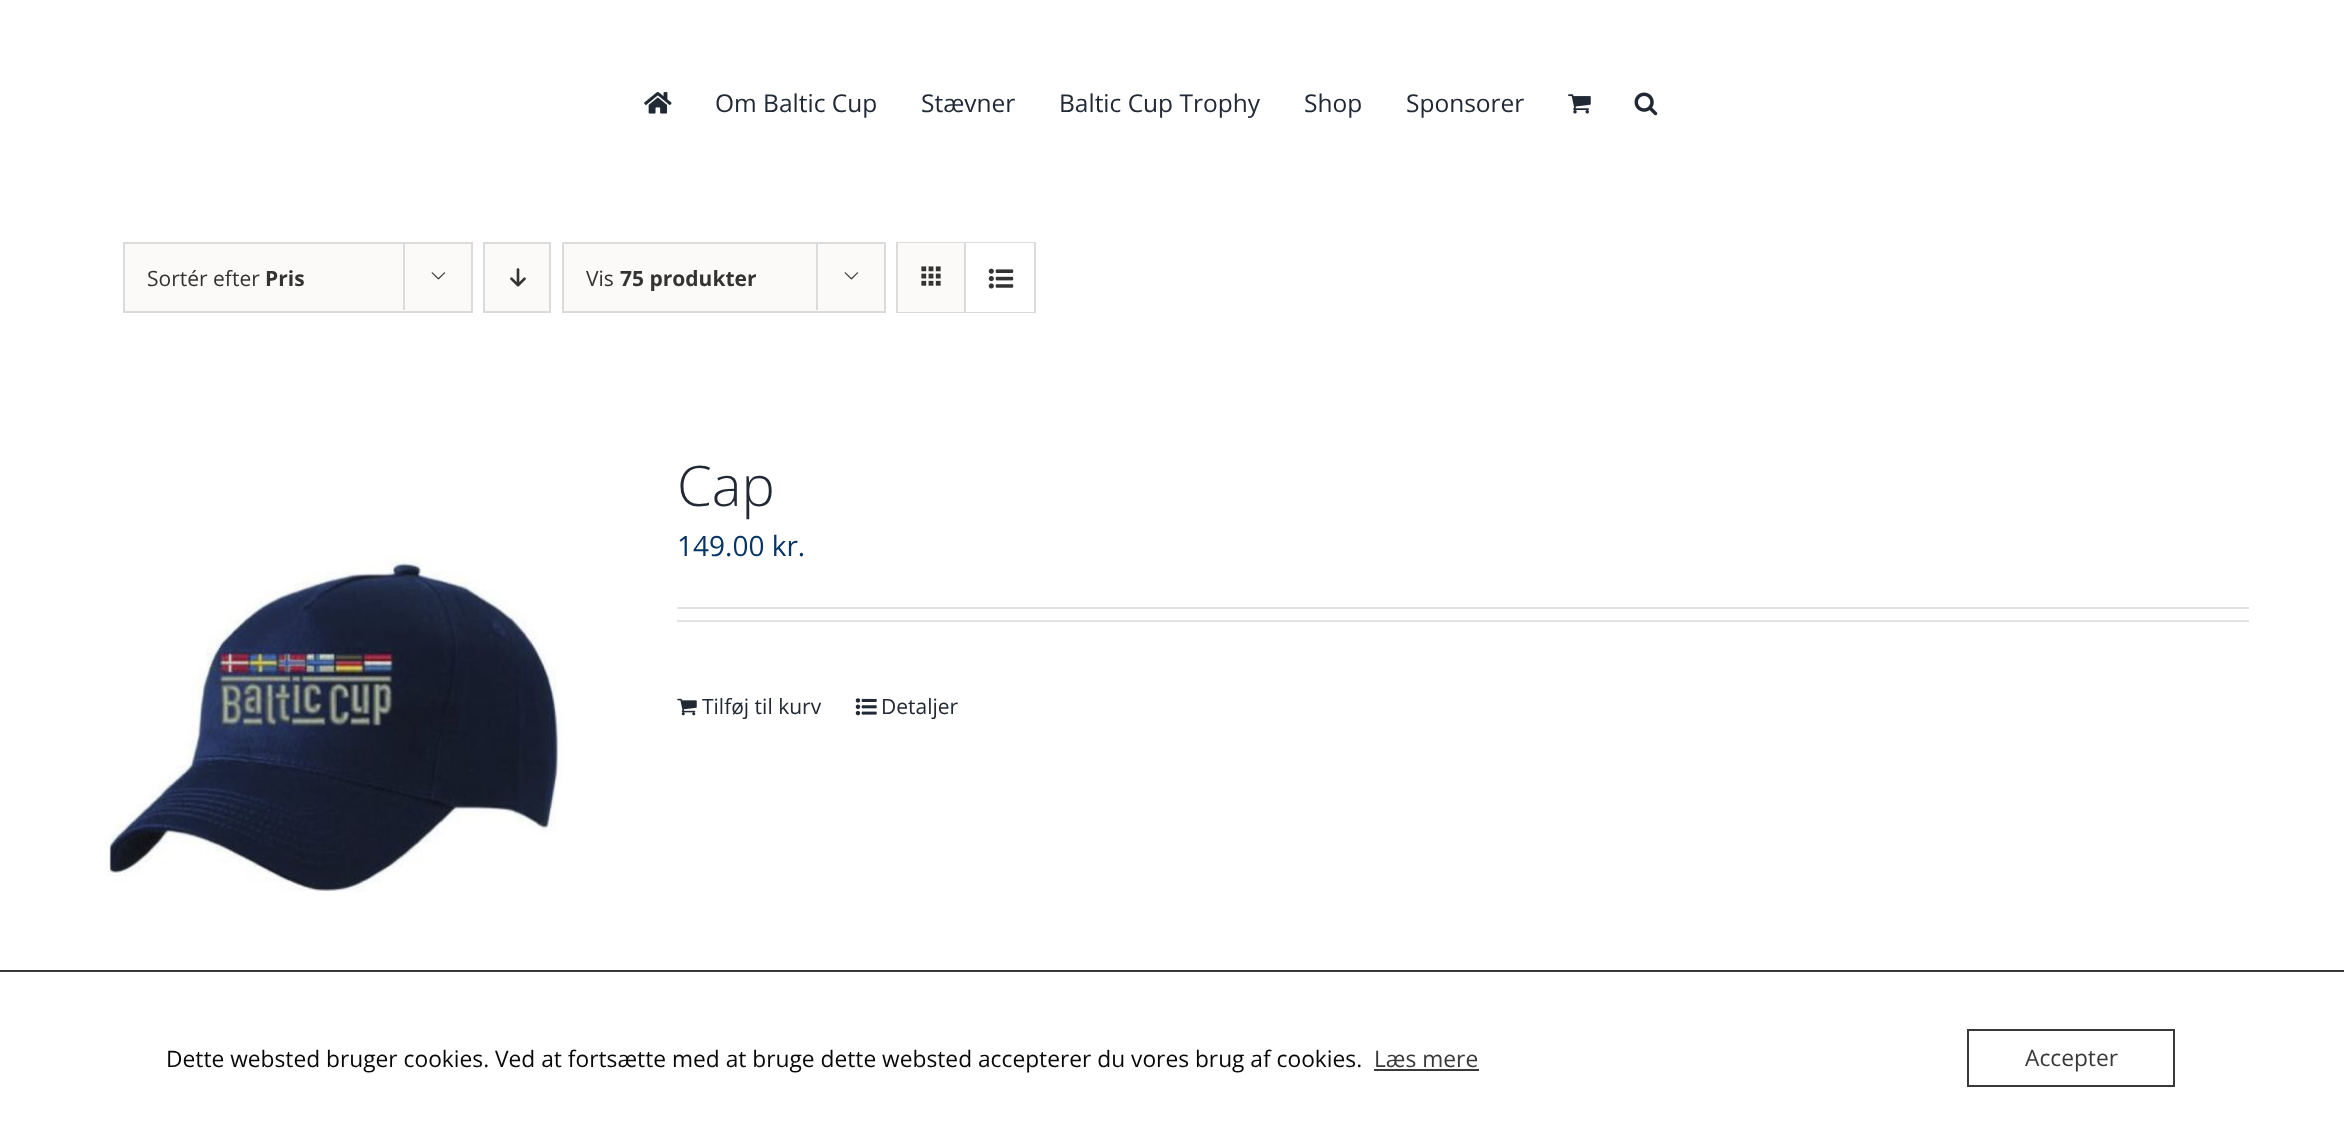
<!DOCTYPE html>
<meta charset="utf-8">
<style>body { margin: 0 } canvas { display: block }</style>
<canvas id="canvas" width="2344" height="1143"></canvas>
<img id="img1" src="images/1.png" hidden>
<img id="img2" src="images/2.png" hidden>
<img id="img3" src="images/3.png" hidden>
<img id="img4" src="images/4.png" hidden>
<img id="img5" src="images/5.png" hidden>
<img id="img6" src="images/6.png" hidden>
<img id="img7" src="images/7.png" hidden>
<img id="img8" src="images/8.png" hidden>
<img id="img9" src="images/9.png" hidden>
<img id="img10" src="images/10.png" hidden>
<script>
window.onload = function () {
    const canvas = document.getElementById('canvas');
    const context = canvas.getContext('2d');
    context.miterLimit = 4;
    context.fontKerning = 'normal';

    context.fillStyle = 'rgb(255, 255, 255)';
    context.fillRect(0, 0, 2344, 1143);
    context.drawImage(document.getElementById('img1'), 644, 92, 28, 22);
    context.drawImage(document.getElementById('img2'), 1568, 94, 23, 20);
    context.drawImage(document.getElementById('img3'), 1634, 92, 24, 24);
    context.fillStyle = 'rgb(251, 250, 249)';
    context.beginPath();
    context.rect(124, 243, 348, 69);
    context.fill();
    context.strokeStyle = 'rgb(219, 219, 219)';
    context.lineWidth = 2;
    context.stroke();
    context.fillStyle = 'rgb(219, 219, 219)';
    context.fillRect(403, 242, 2, 68);
    context.drawImage(document.getElementById('img4'), 431, 272, 15, 8);
    context.fillStyle = 'rgb(251, 250, 249)';
    context.beginPath();
    context.rect(484, 243, 66, 69);
    context.fill();
    context.stroke();
    context.drawImage(document.getElementById('img5'), 510, 268, 16, 19);
    context.beginPath();
    context.rect(563, 243, 322, 69);
    context.fill();
    context.stroke();
    context.fillStyle = 'rgb(219, 219, 219)';
    context.fillRect(816, 242, 2, 68);
    context.drawImage(document.getElementById('img4'), 844, 272, 15, 8);
    context.strokeRect(897, 243, 138, 69);
    context.fillStyle = 'rgb(251, 250, 249)';
    context.fillRect(898, 243, 66, 69);
    context.fillStyle = 'rgb(219, 219, 219)';
    context.fillRect(964, 243, 2, 69);
    context.drawImage(document.getElementById('img6'), 921, 266, 20, 20);
    context.fillStyle = 'rgb(255, 255, 255)';
    context.fillRect(966, 243, 68, 69);
    context.drawImage(document.getElementById('img7'), 988, 268, 26, 21);
    context.drawImage(document.getElementById('img8'), 105, 555, 459, 337);
    context.fillStyle = 'rgb(226, 226, 226)';
    context.fillRect(677, 607, 1572, 2);
    context.fillRect(677, 620, 1572, 2);
    context.drawImage(document.getElementById('img9'), 677, 698, 20, 18);
    context.drawImage(document.getElementById('img10'), 855, 698, 22, 18);
    context.fillStyle = 'rgb(57, 57, 57)';
    context.fillRect(0, 970, 2344, 2);
    context.fillRect(1374, 1069, 105, 2);
    context.strokeStyle = 'rgb(57, 57, 57)';
    context.strokeRect(1968, 1030, 206, 56);
    context.font = '24.5px Open Sans';
    context.fillStyle = 'rgb(33, 41, 52)';
    context.fillText('Om Baltic Cup', 715, 112);
    context.fillText('Stævner', 921, 112);
    context.fillText('Baltic Cup Trophy', 1059, 112);
    context.fillText('Shop', 1304, 112);
    context.fillText('Sponsorer', 1406, 112);
    context.font = '21px Open Sans';
    context.fillStyle = 'rgb(51, 51, 51)';
    context.fillText('Sortér efter', 147, 286);
    context.font = 'bold 21px Open Sans';
    context.fillText('Pris', 265, 286);
    context.font = '21px Open Sans';
    context.fillText('Vis', 586, 286);
    context.font = 'bold 21px Open Sans';
    context.fillText('75 produkter', 620, 286);
    context.font = '300 56px Open Sans';
    context.fillStyle = 'rgb(33, 41, 52)';
    context.fillText('Cap', 677, 506);
    context.font = '28px Open Sans';
    context.fillStyle = 'rgb(6, 52, 101)';
    context.fillText('149.00 kr.', 677, 556);
    context.font = '21px Open Sans';
    context.fillStyle = 'rgb(33, 41, 52)';
    context.fillText('Tilføj til kurv', 702, 714);
    context.fillText('Detaljer', 881, 714);
    context.font = '22.75px Open Sans';
    context.fillStyle = 'rgb(8, 8, 8)';
    context.fillText('Dette websted bruger cookies. Ved at fortsætte med at bruge dette websted accepterer du vores brug af cookies.', 166, 1067);
    context.fillStyle = 'rgb(57, 57, 57)';
    context.fillText('Læs mere', 1374, 1067);
    context.fillText('Accepter', 2025, 1066);
};
</script>
